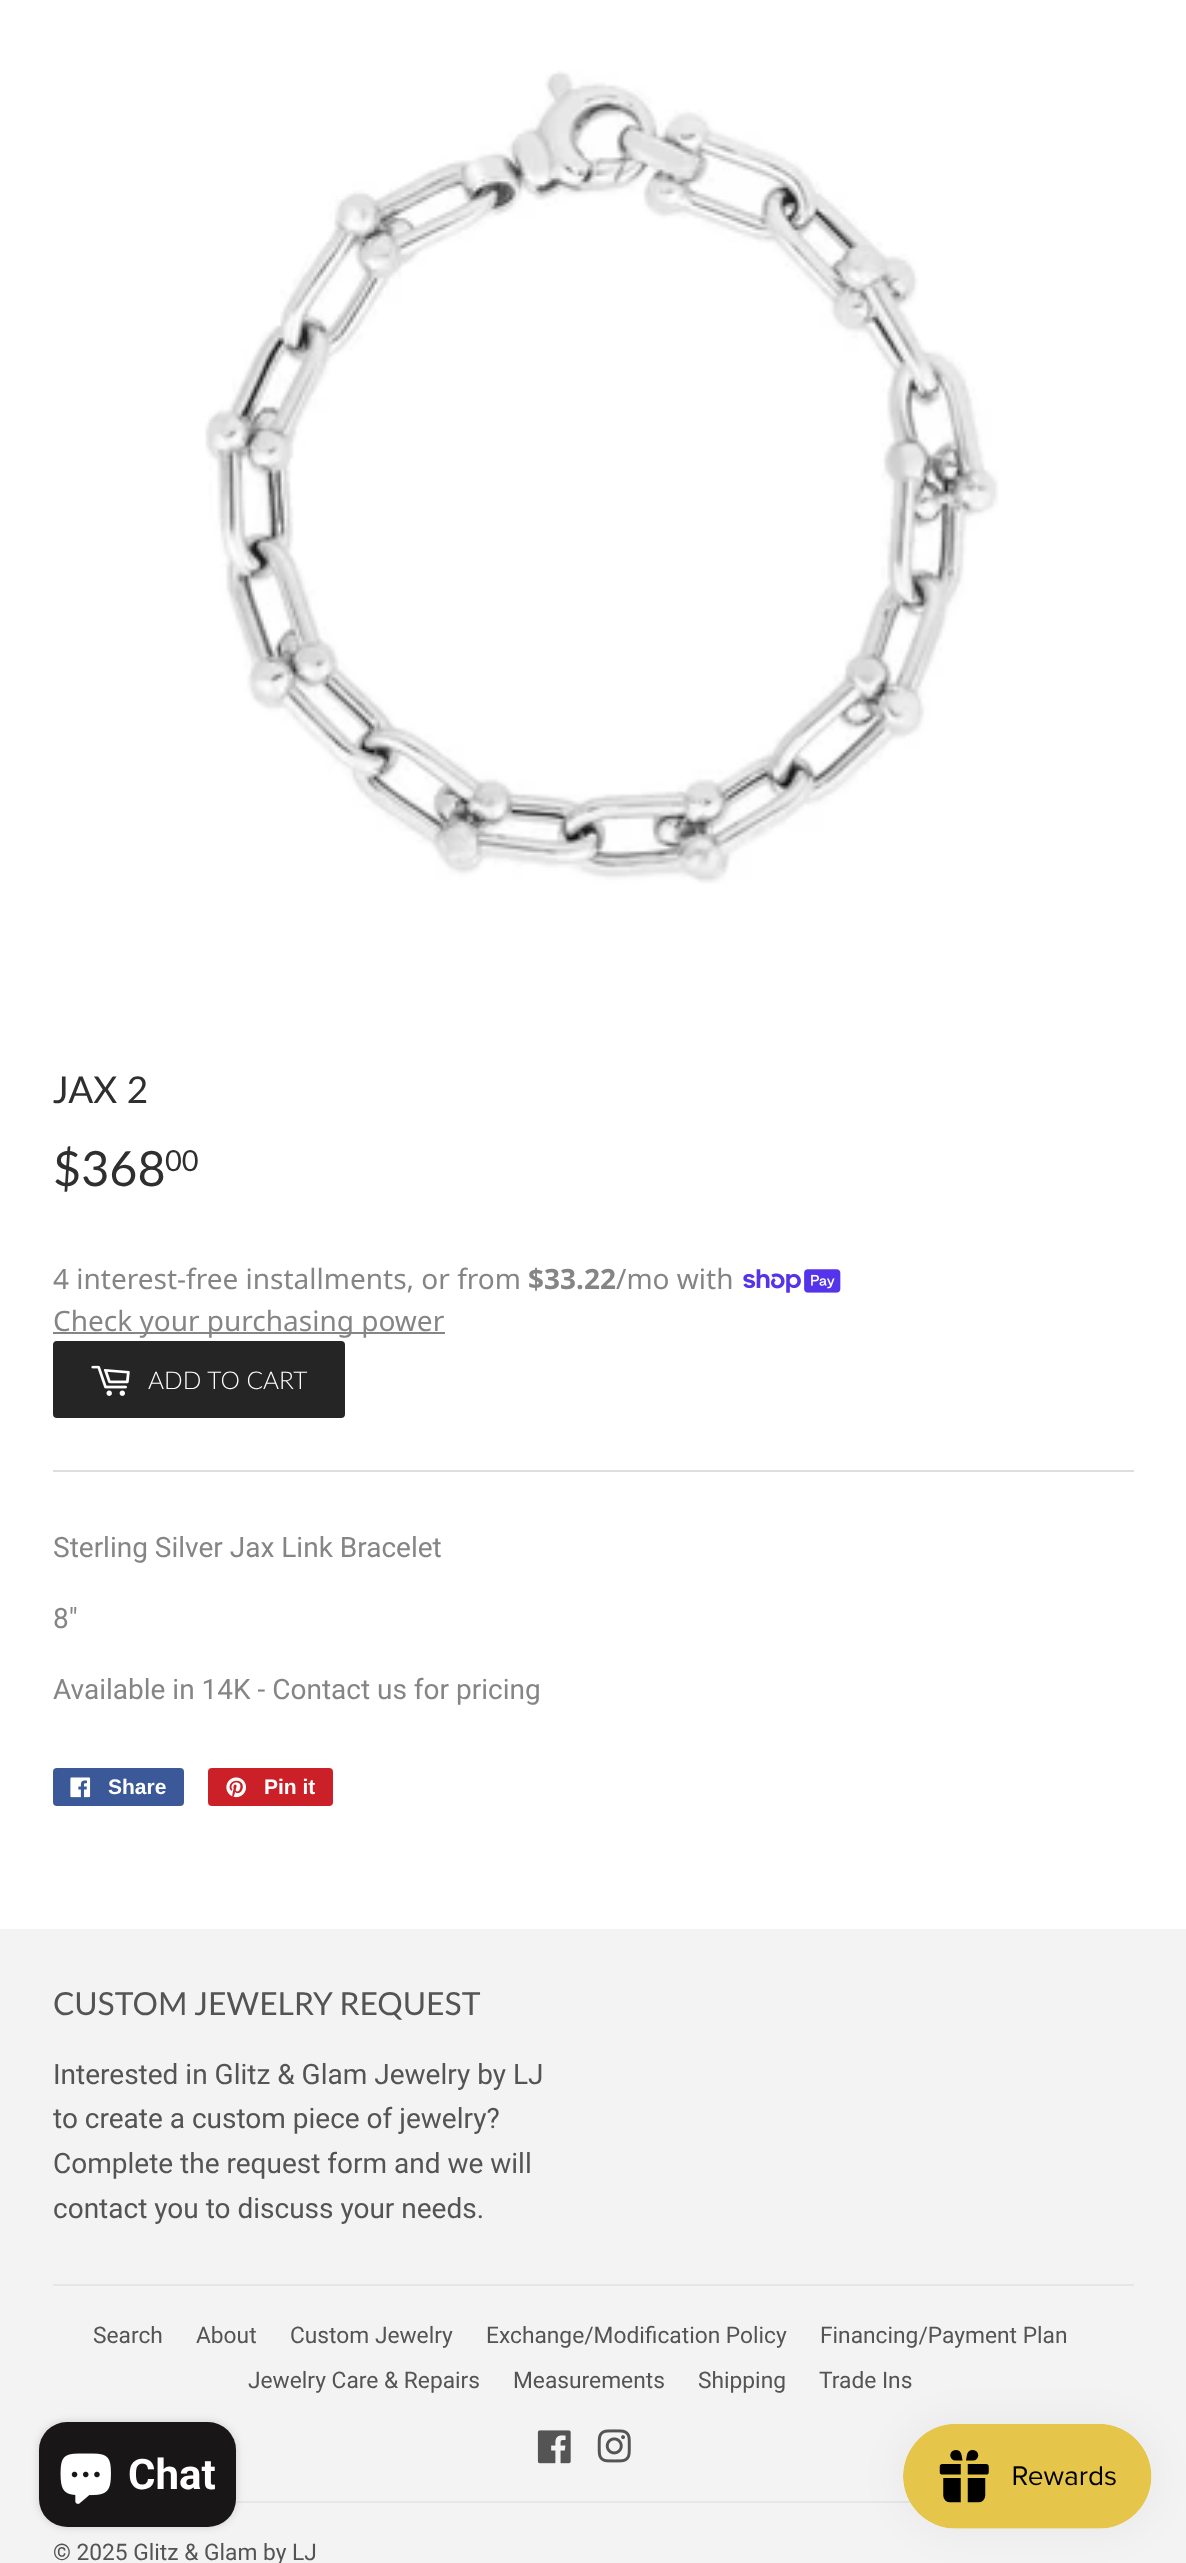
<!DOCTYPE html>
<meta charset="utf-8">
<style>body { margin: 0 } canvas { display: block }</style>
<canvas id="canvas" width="1186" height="2563"></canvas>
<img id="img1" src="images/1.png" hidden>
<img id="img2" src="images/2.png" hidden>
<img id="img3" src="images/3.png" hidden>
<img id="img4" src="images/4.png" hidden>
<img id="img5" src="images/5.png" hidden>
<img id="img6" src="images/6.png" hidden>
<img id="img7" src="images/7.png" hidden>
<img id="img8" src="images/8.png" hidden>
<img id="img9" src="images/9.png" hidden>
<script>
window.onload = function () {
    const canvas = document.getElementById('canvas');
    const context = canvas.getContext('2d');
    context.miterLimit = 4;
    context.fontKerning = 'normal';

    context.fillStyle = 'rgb(255, 255, 255)';
    context.fillRect(0, 0, 1186, 2563);
    context.drawImage(document.getElementById('img1'), 205, 70, 794, 814);
    context.drawImage(document.getElementById('img2'), 743, 1269, 98, 24);
    context.fillStyle = 'rgb(133, 133, 133)';
    context.fillRect(53, 1332, 392, 2);
    context.fillStyle = 'rgb(37, 37, 37)';
    context.beginPath();
    context.roundRect(53, 1341, 292, 77, 4);
    context.fill();
    context.drawImage(document.getElementById('img3'), 91, 1365, 39, 31);
    context.fillStyle = 'rgb(222, 222, 222)';
    context.fillRect(53, 1470, 1081, 2);
    context.fillStyle = 'rgb(59, 89, 152)';
    context.beginPath();
    context.roundRect(53, 1768, 131, 38, 4);
    context.fill();
    context.drawImage(document.getElementById('img4'), 70, 1777, 21, 21);
    context.fillStyle = 'rgb(203, 32, 39)';
    context.beginPath();
    context.roundRect(208, 1768, 125, 38, 4);
    context.fill();
    context.drawImage(document.getElementById('img5'), 226, 1777, 20, 21);
    context.fillStyle = 'rgb(243, 243, 243)';
    context.fillRect(0, 1929, 1186, 634);
    context.fillStyle = 'rgb(230, 230, 230)';
    context.fillRect(53, 2284, 1081, 2);
    context.drawImage(document.getElementById('img6'), 537, 2430, 34, 34);
    context.drawImage(document.getElementById('img7'), 597, 2429, 34, 34);
    context.fillRect(235, 2501, 676, 2);
    context.fillStyle = 'rgba(0, 0, 0, 0.15)';
    context.filter = 'blur(4.5px)';
    context.beginPath();
    context.roundRect(39, 2422, 197, 105, 28);
    context.fill();
    context.filter = 'none';
    context.fillStyle = 'rgb(24, 22, 22)';
    context.beginPath();
    context.roundRect(39, 2422, 197, 105, 28);
    context.fill();
    context.drawImage(document.getElementById('img8'), 60, 2453, 51, 51);
    context.fillStyle = 'rgba(0, 0, 0, 0.05)';
    context.filter = 'blur(22px)';
    context.beginPath();
    context.roundRect(903, 2424, 249, 105, 52.5);
    context.fill();
    context.filter = 'none';
    context.drawImage(document.getElementById('img9'), 903, 2424, 249, 105);
    context.font = '37px Lato';
    context.fillStyle = 'rgb(47, 47, 47)';
    context.fillText('JAX 2', 53, 1103);
    context.font = '48.5px Lato';
    context.fillText('$368', 53, 1186);
    context.font = '29px Lato';
    context.fillText('00', 165, 1171);
    context.font = '28px Noto Sans';
    context.fillStyle = 'rgb(133, 133, 133)';
    context.fillText('4 interest-free installments, or from', 53, 1289);
    context.font = 'bold 28px Noto Sans';
    context.fillText('$33.22', 528, 1289);
    context.font = '28px Noto Sans';
    context.fillText('/mo with', 616, 1289);
    context.fillText('Check your purchasing power', 53, 1331);
    context.font = '300 24.5px Lato';
    context.fillStyle = 'rgb(255, 255, 255)';
    context.fillText('ADD TO CART', 148, 1389);
    context.font = '28px Roboto';
    context.fillStyle = 'rgb(133, 133, 133)';
    context.fillText('Sterling Silver Jax Link Bracelet', 53, 1557);
    context.fillText('8"', 53, 1628);
    context.fillText('Available in 14K - Contact us for pricing', 53, 1699);
    context.font = 'bold 21px Liberation Sans';
    context.fillStyle = 'rgb(255, 255, 255)';
    context.fillText('Share', 108, 1794);
    context.fillText('Pin it', 264, 1794);
    context.font = '31.75px Lato';
    context.fillStyle = 'rgb(84, 84, 84)';
    context.fillText('CUSTOM JEWELRY REQUEST', 53, 2015);
    context.font = '28px Roboto';
    context.fillText('Interested in Glitz & Glam Jewelry by LJ', 53, 2084);
    context.fillText('to create a custom piece of jewelry?', 53, 2128);
    context.fillText('Complete the request form and we will', 53, 2173);
    context.fillText('contact you to discuss your needs.', 53, 2218);
    context.font = '22.75px Roboto';
    context.fillText('Search', 93, 2343);
    context.fillText('About', 196, 2343);
    context.fillText('Custom Jewelry', 290, 2343);
    context.fillText('Exchange/Modification Policy', 486, 2343);
    context.fillText('Financing/Payment Plan', 820, 2343);
    context.fillText('Jewelry Care & Repairs', 248, 2388);
    context.fillText('Measurements', 513, 2388);
    context.fillText('Shipping', 698, 2388);
    context.fillText('Trade Ins', 819, 2388);
    context.fillText('© 2025 Glitz & Glam by LJ', 53, 2560);
    context.font = 'bold 42px Roboto';
    context.fillStyle = 'rgb(255, 255, 255)';
    context.fillText('Chat', 128, 2489);
};
</script>
